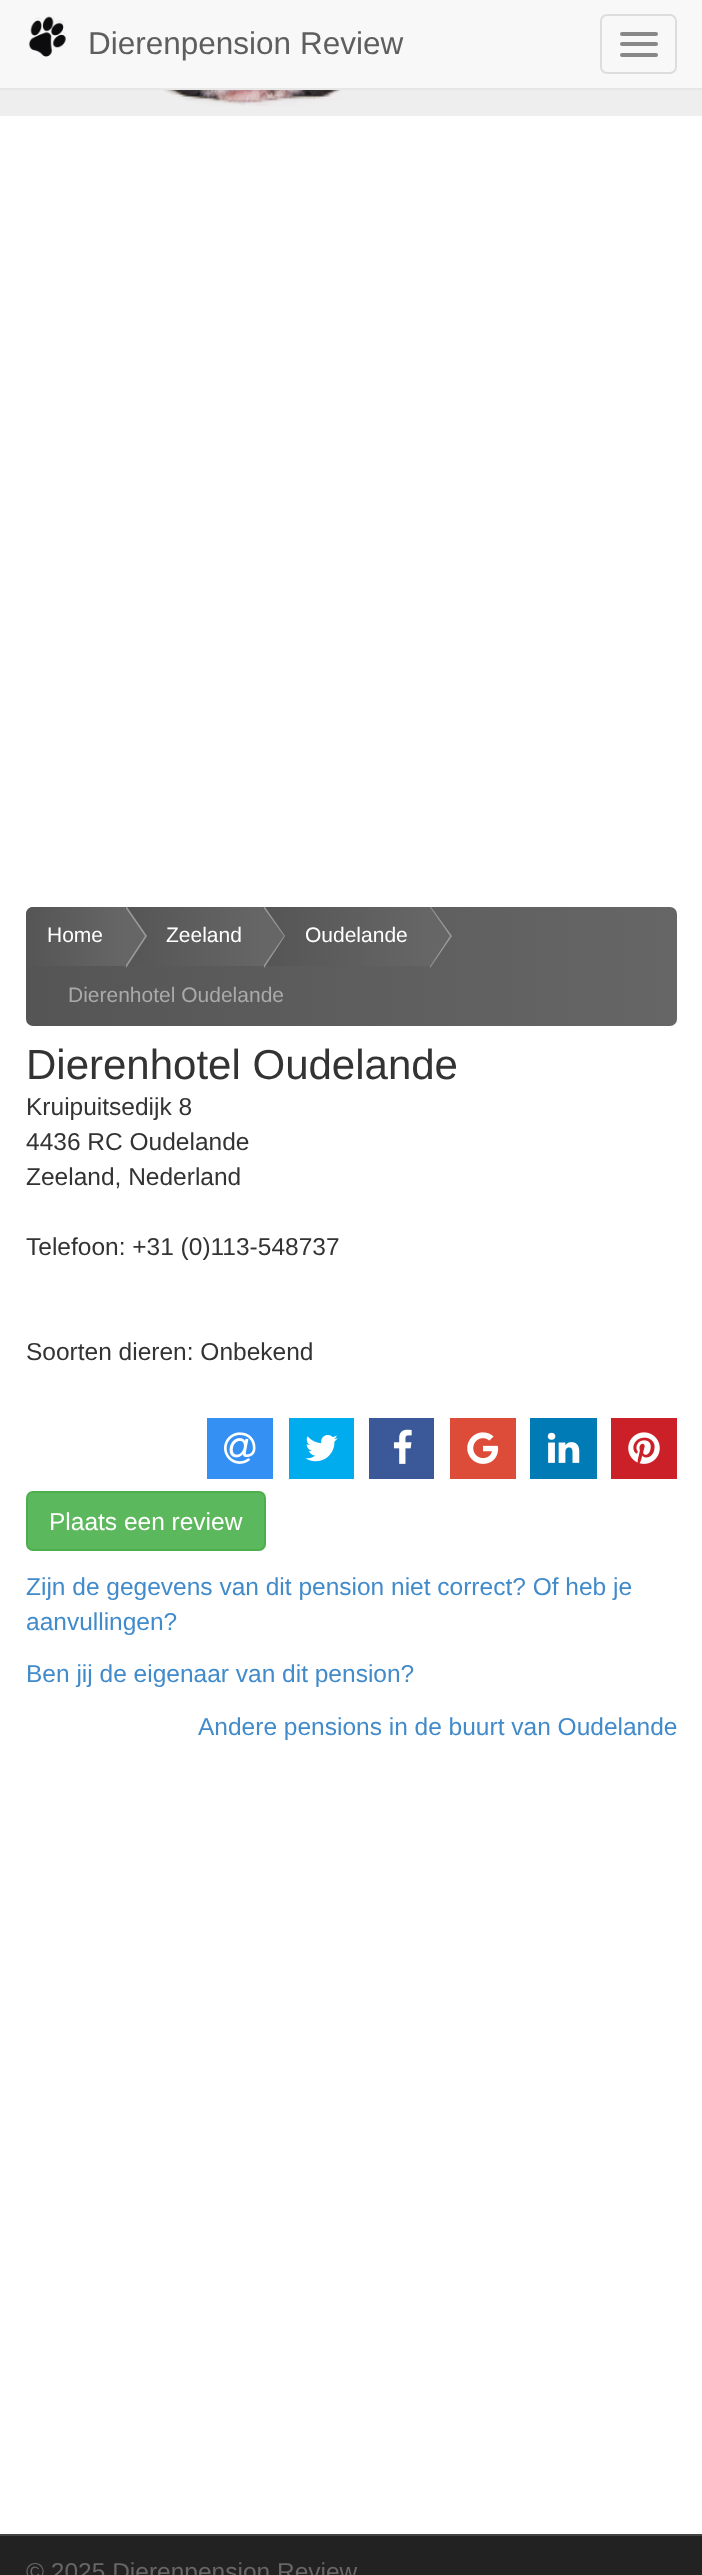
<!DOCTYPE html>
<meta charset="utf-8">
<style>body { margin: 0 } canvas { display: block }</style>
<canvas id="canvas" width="702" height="2575"></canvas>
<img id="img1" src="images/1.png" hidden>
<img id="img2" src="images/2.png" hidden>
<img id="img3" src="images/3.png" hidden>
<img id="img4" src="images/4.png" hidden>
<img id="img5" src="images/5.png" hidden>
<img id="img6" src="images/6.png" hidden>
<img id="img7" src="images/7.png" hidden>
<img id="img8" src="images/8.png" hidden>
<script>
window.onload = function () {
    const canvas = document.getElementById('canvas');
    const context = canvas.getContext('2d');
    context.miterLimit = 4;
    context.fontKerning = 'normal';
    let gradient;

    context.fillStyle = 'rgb(255, 255, 255)';
    context.fillRect(0, 0, 702, 2575);
    context.fillStyle = 'rgb(248, 248, 248)';
    context.fillRect(0, 0, 702, 88);
    context.fillStyle = 'rgb(231, 231, 231)';
    context.fillRect(0, 88, 702, 2);
    context.drawImage(document.getElementById('img1'), 28, 16, 40, 41);
    context.beginPath();
    context.roundRect(601, 15, 75, 58, 6);
    context.strokeStyle = 'rgb(221, 221, 221)';
    context.lineWidth = 2;
    context.stroke();
    context.fillStyle = 'rgb(136, 136, 136)';
    context.beginPath();
    context.roundRect(620, 32, 38, 4, 2);
    context.fill();
    context.beginPath();
    context.roundRect(620, 42, 38, 4, 2);
    context.fill();
    context.beginPath();
    context.roundRect(620, 53, 38, 4, 2);
    context.fill();
    context.fillStyle = 'rgb(238, 238, 238)';
    context.fillRect(0, 90, 702, 26);
    context.drawImage(document.getElementById('img2'), 164, 90, 177, 16);
    gradient = context.createLinearGradient(26, 966, 677, 966);
    gradient.addColorStop(0, 'rgb(85, 85, 85)');
    gradient.addColorStop(1, 'rgb(102, 102, 102)');
    context.fillStyle = gradient;
    context.beginPath();
    context.roundRect(26, 907, 651, 119, 7);
    context.fill();
    gradient = context.createLinearGradient(26, 936, 124, 936);
    gradient.addColorStop(0, 'rgb(85, 85, 85)');
    gradient.addColorStop(1, 'rgb(102, 102, 102)');
    context.fillStyle = gradient;
    context.beginPath();
    context.roundRect(26, 907, 98, 59, [7, 0, 0, 0]);
    context.fill();
    gradient = context.createLinearGradient(124, 936, 263, 936);
    gradient.addColorStop(0, 'rgb(85, 85, 85)');
    gradient.addColorStop(1, 'rgb(102, 102, 102)');
    context.fillStyle = gradient;
    context.fillRect(125, 907, 137, 59);
    context.fillStyle = 'rgb(153, 153, 153)';
    context.beginPath();
    context.moveTo(126, 968);
    context.lineTo(147, 936);
    context.lineTo(127, 907);
    context.lineTo(126, 907);
    context.closePath();
    context.fill();
    context.fillStyle = 'rgb(102, 102, 102)';
    context.beginPath();
    context.moveTo(124, 968);
    context.lineTo(145, 936);
    context.lineTo(125, 907);
    context.lineTo(124, 907);
    context.closePath();
    context.fill();
    gradient = context.createLinearGradient(263, 936, 429, 936);
    gradient.addColorStop(0, 'rgb(85, 85, 85)');
    gradient.addColorStop(1, 'rgb(102, 102, 102)');
    context.fillStyle = gradient;
    context.fillRect(263, 907, 166, 59);
    context.fillStyle = 'rgb(153, 153, 153)';
    context.beginPath();
    context.moveTo(264, 968);
    context.lineTo(285, 936);
    context.lineTo(265, 907);
    context.lineTo(264, 907);
    context.closePath();
    context.fill();
    context.fillStyle = 'rgb(102, 102, 102)';
    context.beginPath();
    context.moveTo(262, 968);
    context.lineTo(284, 936);
    context.lineTo(263, 907);
    context.lineTo(262, 907);
    context.closePath();
    context.fill();
    context.fillStyle = 'rgb(153, 153, 153)';
    context.beginPath();
    context.moveTo(430, 968);
    context.lineTo(452, 936);
    context.lineTo(431, 907);
    context.lineTo(430, 907);
    context.closePath();
    context.fill();
    context.fillStyle = 'rgb(102, 102, 102)';
    context.beginPath();
    context.moveTo(429, 968);
    context.lineTo(450, 936);
    context.lineTo(430, 907);
    context.lineTo(429, 907);
    context.closePath();
    context.fill();
    context.fillStyle = 'rgb(52, 144, 243)';
    context.fillRect(207, 1418, 66, 61);
    context.drawImage(document.getElementById('img3'), 224, 1432, 32, 32);
    context.fillStyle = 'rgb(0, 172, 237)';
    context.fillRect(289, 1418, 65, 61);
    context.drawImage(document.getElementById('img4'), 305, 1435, 33, 27);
    context.fillStyle = 'rgb(59, 89, 152)';
    context.fillRect(369, 1418, 65, 61);
    context.drawImage(document.getElementById('img5'), 393, 1429, 19, 35);
    context.fillStyle = 'rgb(221, 75, 57)';
    context.fillRect(450, 1418, 66, 61);
    context.drawImage(document.getElementById('img6'), 467, 1432, 32, 32);
    context.fillStyle = 'rgb(0, 123, 182)';
    context.fillRect(530, 1418, 67, 61);
    context.drawImage(document.getElementById('img7'), 547, 1432, 33, 31);
    context.fillStyle = 'rgb(203, 32, 39)';
    context.fillRect(611, 1418, 66, 61);
    context.drawImage(document.getElementById('img8'), 628, 1432, 32, 32);
    context.fillStyle = 'rgb(92, 184, 92)';
    context.beginPath();
    context.roundRect(27, 1492, 238, 58, 6);
    context.fill();
    context.strokeStyle = 'rgb(76, 174, 76)';
    context.stroke();
    context.fillStyle = 'rgb(34, 34, 34)';
    context.fillRect(0, 2536, 702, 39);
    context.fillStyle = 'rgb(68, 68, 68)';
    context.fillRect(0, 2534, 702, 2);
    context.font = '31.5px Liberation Sans';
    context.fillStyle = 'rgb(94, 94, 94)';
    context.fillText('Dierenpension Review', 88, 54);
    context.font = '21px Liberation Sans';
    context.fillStyle = 'rgb(255, 255, 255)';
    context.fillText('Home', 47, 942);
    context.fillText('Zeeland', 166, 942);
    context.fillText('Oudelande', 305, 942);
    context.fillStyle = 'rgb(170, 170, 170)';
    context.fillText('Dierenhotel Oudelande', 68, 1002);
    context.font = '42px Liberation Sans';
    context.fillStyle = 'rgb(51, 51, 51)';
    context.fillText('Dierenhotel Oudelande', 26, 1079);
    context.font = '24.5px Liberation Sans';
    context.fillText('Kruipuitsedijk 8', 26, 1115);
    context.fillText('4436 RC Oudelande', 26, 1150);
    context.fillText('Zeeland, Nederland', 26, 1185);
    context.fillText('Telefoon: +31 (0)113-548737', 26, 1255);
    context.fillText('Soorten dieren: Onbekend', 26, 1360);
    context.fillStyle = 'rgb(255, 255, 255)';
    context.fillText('Plaats een review', 49, 1530);
    context.fillStyle = 'rgb(66, 139, 202)';
    context.fillText('Zijn de gegevens van dit pension niet correct? Of heb je', 26, 1595);
    context.fillText('aanvullingen?', 26, 1630);
    context.fillText('Ben jij de eigenaar van dit pension?', 26, 1682);
    context.fillText('Andere pensions in de buurt van Oudelande', 198, 1735);
    context.fillStyle = 'rgb(102, 102, 102)';
    context.fillText('© 2025 Dierenpension Review', 26, 2580);
};
</script>
